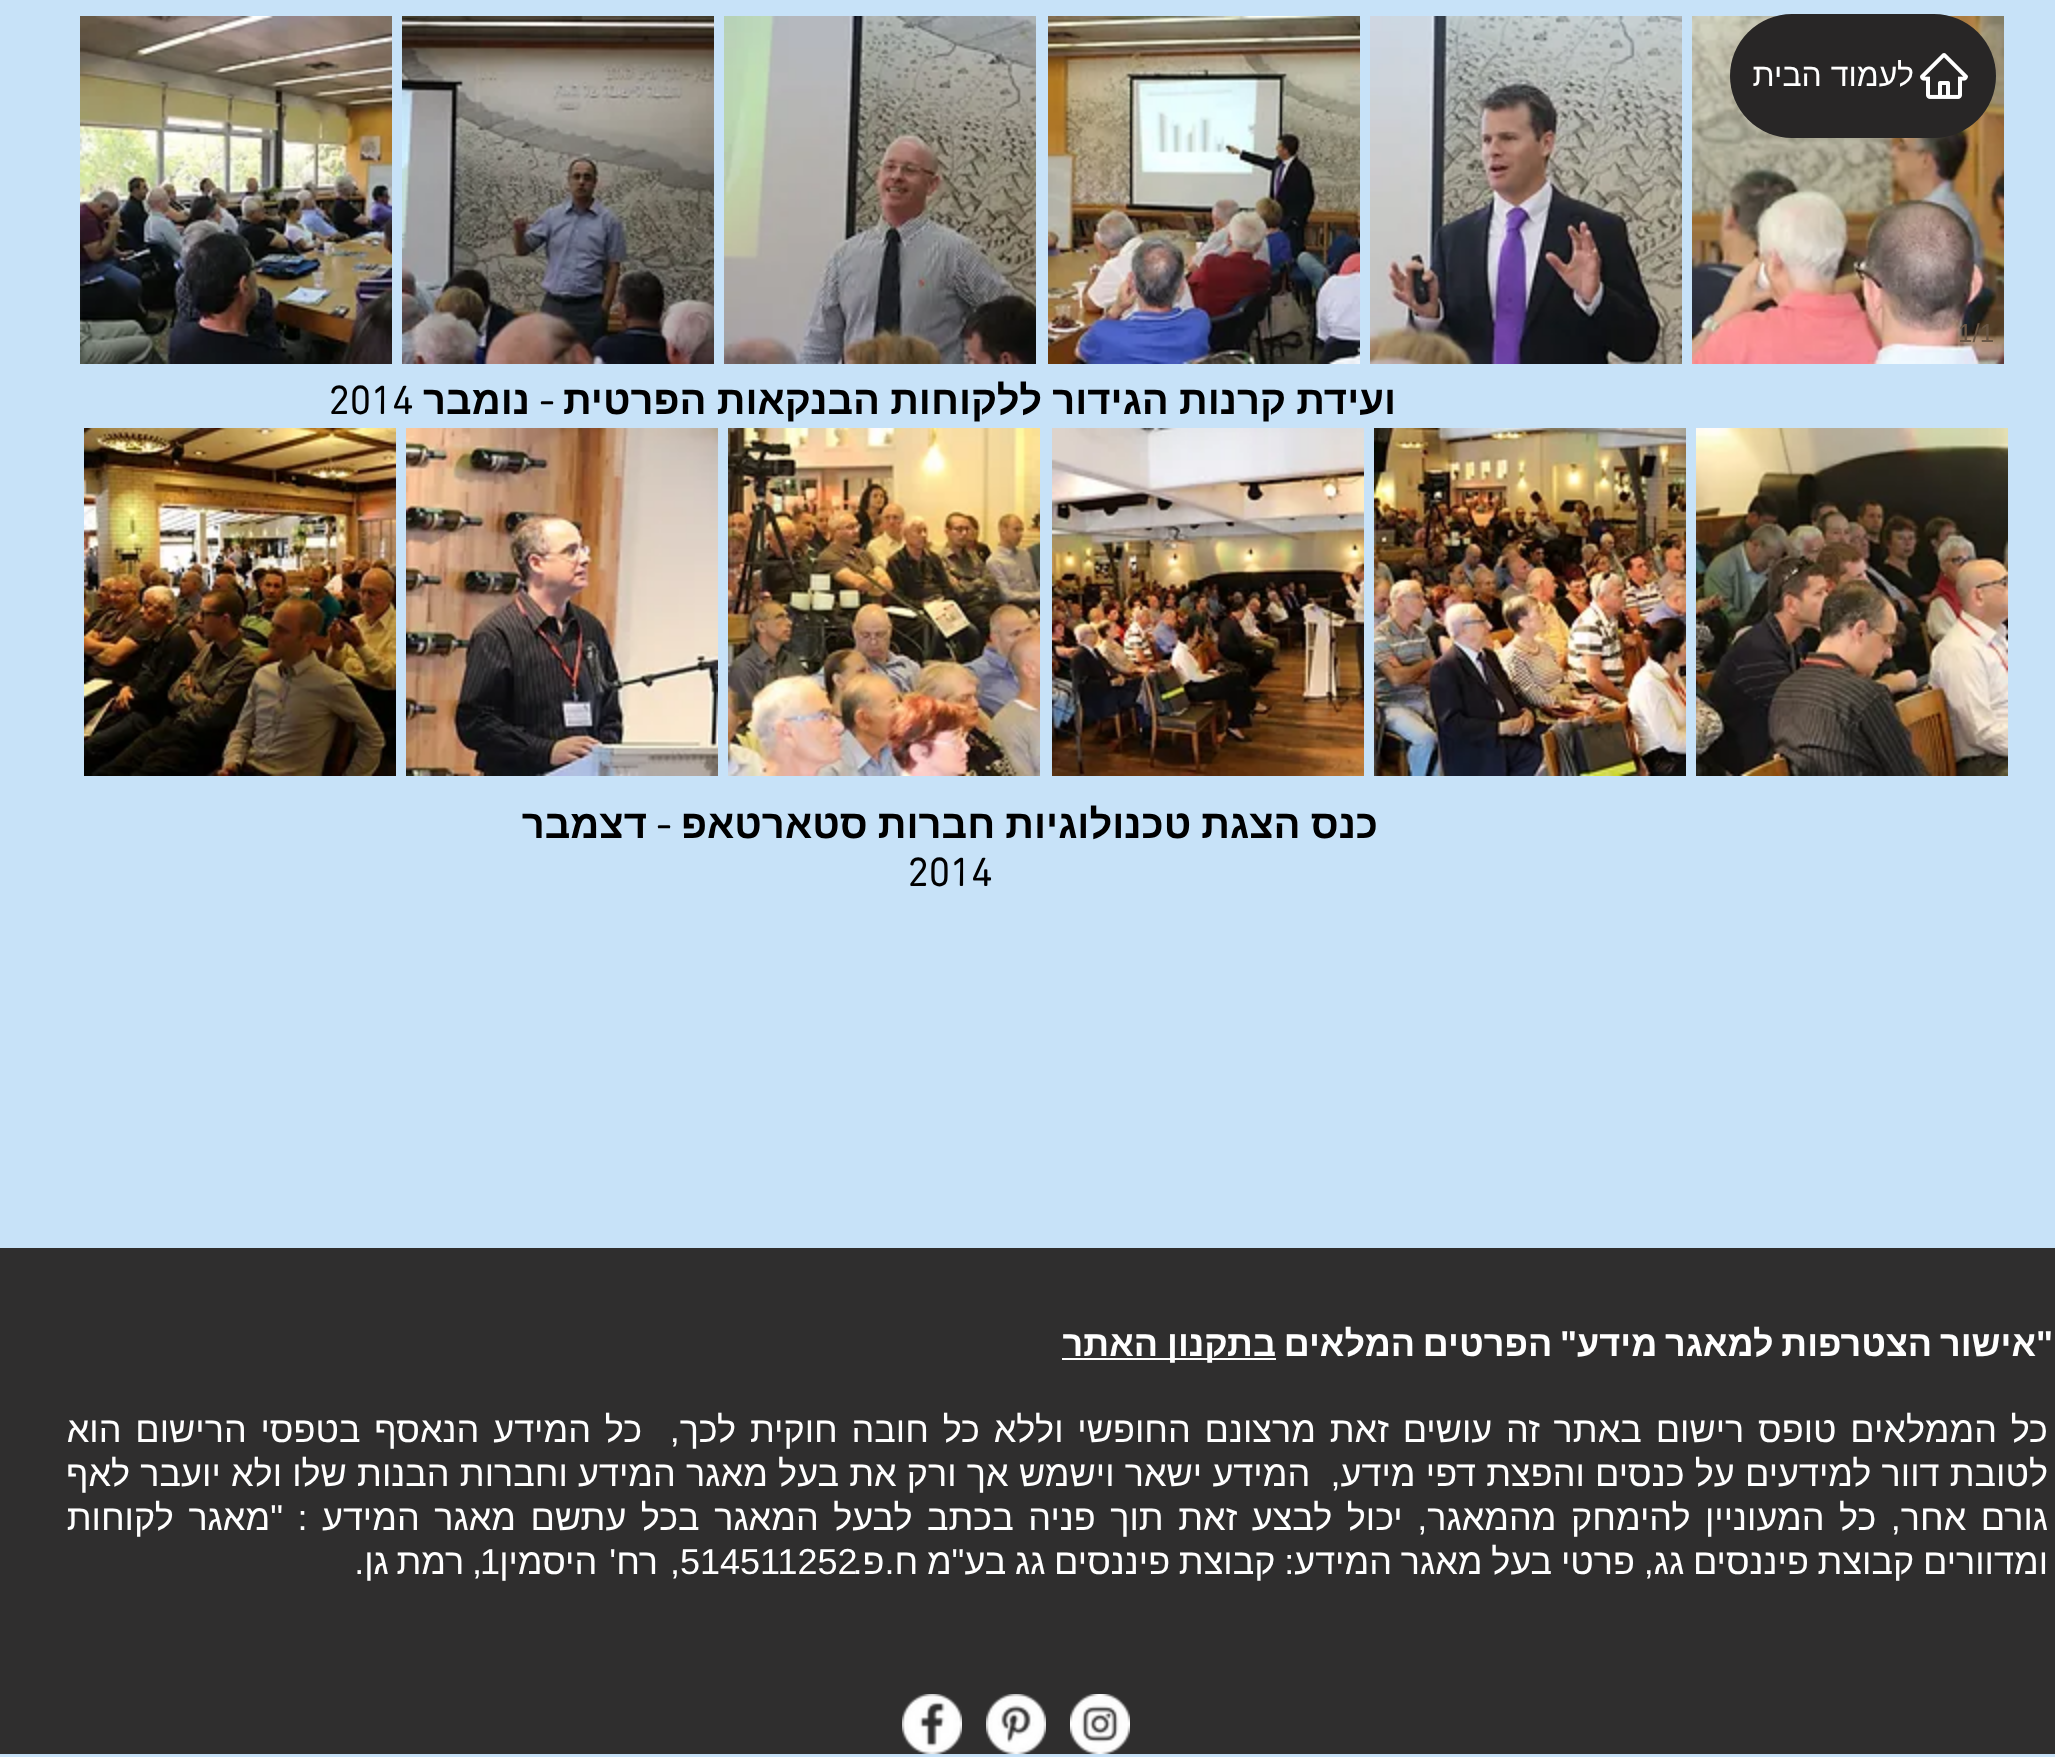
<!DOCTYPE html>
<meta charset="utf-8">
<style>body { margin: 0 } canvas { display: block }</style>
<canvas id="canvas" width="2055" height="1757"></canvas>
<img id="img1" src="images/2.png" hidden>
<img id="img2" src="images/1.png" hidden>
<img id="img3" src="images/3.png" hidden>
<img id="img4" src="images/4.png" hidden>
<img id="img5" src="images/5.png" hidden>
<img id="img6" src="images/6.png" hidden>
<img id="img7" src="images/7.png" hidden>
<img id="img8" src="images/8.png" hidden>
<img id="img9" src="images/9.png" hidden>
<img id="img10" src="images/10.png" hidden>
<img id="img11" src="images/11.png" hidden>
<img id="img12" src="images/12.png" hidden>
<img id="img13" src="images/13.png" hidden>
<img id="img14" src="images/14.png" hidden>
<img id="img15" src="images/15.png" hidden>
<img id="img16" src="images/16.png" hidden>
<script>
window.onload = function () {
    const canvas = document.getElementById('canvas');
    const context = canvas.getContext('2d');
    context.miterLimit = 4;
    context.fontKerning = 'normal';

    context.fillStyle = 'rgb(199, 226, 248)';
    context.fillRect(0, 0, 2055, 1757);
    context.drawImage(document.getElementById('img1'), 1692, 16, 312, 348);
    context.fillStyle = 'rgb(40, 38, 38)';
    context.beginPath();
    context.roundRect(1730, 14, 266, 124, 62);
    context.fill();
    context.drawImage(document.getElementById('img2'), 1920, 53, 48, 46);
    context.drawImage(document.getElementById('img3'), 1370, 16, 312, 348);
    context.drawImage(document.getElementById('img4'), 1048, 16, 312, 348);
    context.drawImage(document.getElementById('img5'), 724, 16, 312, 348);
    context.drawImage(document.getElementById('img6'), 402, 16, 312, 348);
    context.drawImage(document.getElementById('img7'), 80, 16, 312, 348);
    context.drawImage(document.getElementById('img8'), 1696, 428, 312, 348);
    context.drawImage(document.getElementById('img9'), 1374, 428, 312, 348);
    context.drawImage(document.getElementById('img10'), 1052, 428, 312, 348);
    context.drawImage(document.getElementById('img11'), 728, 428, 312, 348);
    context.drawImage(document.getElementById('img12'), 406, 428, 312, 348);
    context.drawImage(document.getElementById('img13'), 84, 428, 312, 348);
    context.fillStyle = 'rgb(47, 46, 46)';
    context.fillRect(0, 1248, 2055, 506);
    context.fillStyle = 'rgb(255, 255, 255)';
    context.fillRect(1062, 1358, 214, 2);
    context.drawImage(document.getElementById('img14'), 1070, 1694, 60, 60);
    context.drawImage(document.getElementById('img15'), 986, 1694, 60, 60);
    context.drawImage(document.getElementById('img16'), 902, 1694, 60, 60);
    context.direction = 'rtl';
    context.font = '32px Liberation Sans';
    context.fillText('לעמוד הבית', 1914, 86);
    context.direction = 'ltr';
    context.font = '26px Liberation Sans';
    context.fillStyle = 'rgb(106, 87, 70)';
    context.fillText('1/1', 1958, 342);
    context.wordSpacing = '-1px';
    context.direction = 'rtl';
    context.font = 'bold 40px Liberation Sans';
    context.fillStyle = 'rgb(0, 0, 0)';
    context.fillText('ועידת קרנות הגידור ללקוחות הבנקאות הפרטית', 1396, 414);
    context.wordSpacing = '0px';
    context.font = 'bold 40px "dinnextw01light"';
    context.fillText('-', 554, 414);
    context.font = 'bold 40px Liberation Sans';
    context.fillText('נומבר', 530, 414);
    context.direction = 'ltr';
    context.font = 'bold 40px "dinnextw01light"';
    context.fillText('2014', 328, 414);
    context.wordSpacing = '-1px';
    context.direction = 'rtl';
    context.font = 'bold 40px Liberation Sans';
    context.fillText('כנס הצגת טכנולוגיות חברות סטארטאפ', 1378, 838);
    context.wordSpacing = '0px';
    context.font = 'bold 40px "dinnextw01light"';
    context.fillText('-', 671, 838);
    context.font = 'bold 40px Liberation Sans';
    context.fillText('דצמבר', 647, 838);
    context.direction = 'ltr';
    context.font = 'bold 40px "dinnextw01light"';
    context.fillText('2014', 907, 886);
    context.wordSpacing = '-2.25px';
    context.direction = 'rtl';
    context.font = 'bold 36px Liberation Sans';
    context.fillStyle = 'rgb(255, 255, 255)';
    context.fillText('"אישור הצטרפות למאגר מידע" הפרטים המלאים', 2053, 1356);
    context.wordSpacing = '-1px';
    context.fillText('בתקנון האתר', 1276, 1356);
    context.wordSpacing = '3.8px';
    context.font = '36px Liberation Sans';
    context.fillText('כל הממלאים טופס רישום באתר זה עושים זאת מרצונם החופשי וללא כל חובה חוקית לכך,  כל המידע הנאסף בטפסי הרישום הוא', 2048, 1442);
    context.wordSpacing = '0.2px';
    context.fillText('לטובת דוור למידעים על כנסים והפצת דפי מידע,  המידע ישאר וישמש אך ורק את בעל מאגר המידע וחברות הבנות שלו ולא יועבר לאף', 2048, 1486);
    context.wordSpacing = '4.5px';
    context.fillText('גורם אחר, כל המעוניין להימחק מהמאגר, יכול לבצע זאת תוך פניה בכתב לבעל המאגר בכל עתשם מאגר המידע : "מאגר לקוחות', 2048, 1530);
    context.wordSpacing = '0px';
    context.direction = 'ltr';
    context.fillText('514511252', 680, 1574);
    context.wordSpacing = '-1.25px';
    context.direction = 'rtl';
    context.fillText('ומדוורים קבוצת פיננסים גג, פרטי בעל מאגר המידע: קבוצת פיננסים גג בע"מ ח.פ.', 2048, 1574);
    context.wordSpacing = '2px';
    context.fillText(', רח\' היסמין', 680, 1574);
    context.wordSpacing = '0px';
    context.direction = 'ltr';
    context.fillText('1', 480, 1574);
    context.wordSpacing = '-2.25px';
    context.direction = 'rtl';
    context.fillText(', רמת גן.', 482, 1574);
};
</script>
